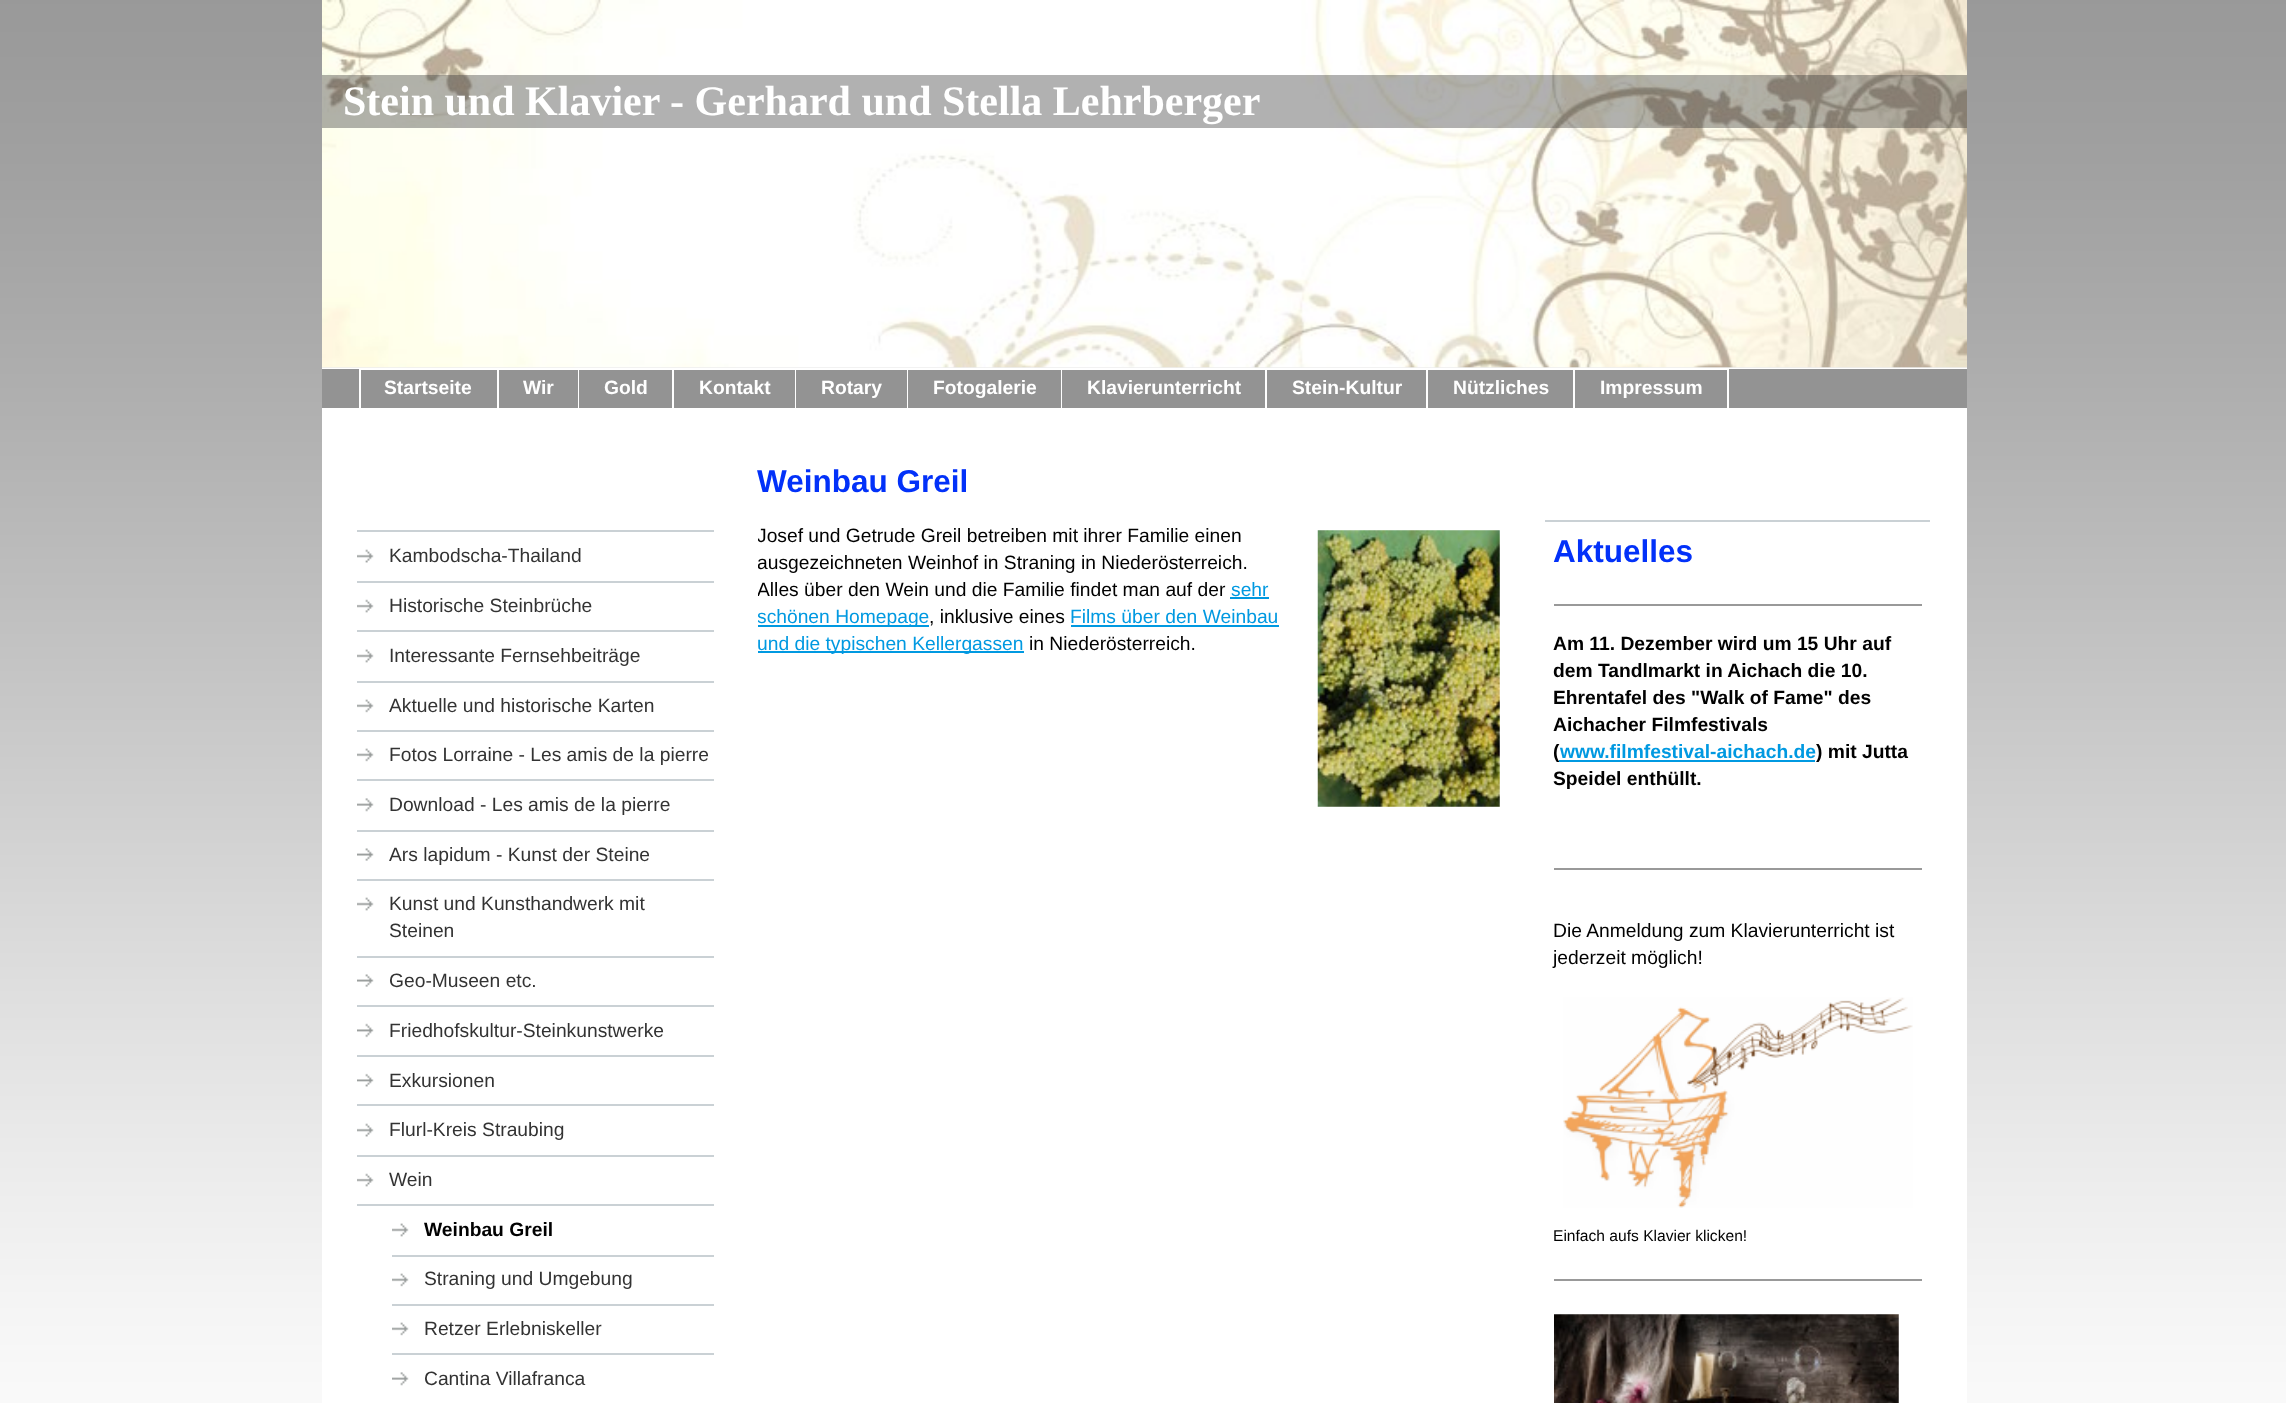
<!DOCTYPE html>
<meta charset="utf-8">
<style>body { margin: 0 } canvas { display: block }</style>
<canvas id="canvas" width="2286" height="1403"></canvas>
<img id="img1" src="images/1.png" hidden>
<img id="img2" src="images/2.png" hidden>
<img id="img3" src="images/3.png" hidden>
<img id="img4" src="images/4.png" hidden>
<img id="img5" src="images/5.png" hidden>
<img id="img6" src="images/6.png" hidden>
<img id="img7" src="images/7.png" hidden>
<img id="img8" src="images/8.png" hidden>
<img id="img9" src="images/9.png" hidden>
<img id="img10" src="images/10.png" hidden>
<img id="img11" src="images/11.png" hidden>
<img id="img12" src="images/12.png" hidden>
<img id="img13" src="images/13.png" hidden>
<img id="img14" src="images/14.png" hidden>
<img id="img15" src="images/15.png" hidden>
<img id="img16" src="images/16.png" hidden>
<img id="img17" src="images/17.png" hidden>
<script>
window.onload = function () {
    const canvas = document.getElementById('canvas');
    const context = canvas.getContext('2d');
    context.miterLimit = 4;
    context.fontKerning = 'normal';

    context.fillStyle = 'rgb(255, 255, 255)';
    context.fillRect(0, 0, 2286, 1403);
    context.drawImage(document.getElementById('img1'), 0, 0, 2286, 1403);
    context.fillRect(322, 368, 1645, 1035);
    context.fillStyle = 'rgb(238, 238, 238)';
    context.fillRect(322, 367, 1645, 1);
    context.drawImage(document.getElementById('img2'), 322, 0, 1645, 368);
    context.fillStyle = 'rgba(51, 51, 51, 0.38)';
    context.fillRect(322, 75, 1645, 53);
    context.fillStyle = 'rgb(147, 147, 147)';
    context.fillRect(322, 369, 1645, 39);
    context.fillStyle = 'rgb(255, 255, 255)';
    context.fillRect(359, 368, 2, 40);
    context.fillRect(361, 369, 1368, 1);
    context.fillRect(497, 368, 2, 42);
    context.fillRect(578, 368, 1, 42);
    context.fillRect(672, 368, 2, 42);
    context.fillRect(795, 368, 1, 42);
    context.fillRect(907, 368, 1, 42);
    context.fillRect(1061, 368, 1, 42);
    context.fillRect(1265, 368, 2, 42);
    context.fillRect(1426, 368, 2, 42);
    context.fillRect(1573, 368, 2, 42);
    context.fillRect(1727, 368, 2, 42);
    context.fillStyle = 'rgb(202, 209, 213)';
    context.fillRect(357, 530, 357, 2);
    context.drawImage(document.getElementById('img3'), 357, 549, 17, 14);
    context.drawImage(document.getElementById('img4'), 357, 583, 357, 30);
    context.fillRect(357, 581, 357, 2);
    context.drawImage(document.getElementById('img5'), 357, 632, 357, 31);
    context.fillRect(357, 630, 357, 2);
    context.drawImage(document.getElementById('img6'), 357, 683, 357, 30);
    context.fillRect(357, 681, 357, 2);
    context.drawImage(document.getElementById('img6'), 357, 732, 357, 30);
    context.fillRect(357, 730, 357, 2);
    context.drawImage(document.getElementById('img7'), 357, 781, 357, 31);
    context.fillRect(357, 779, 357, 2);
    context.drawImage(document.getElementById('img8'), 357, 832, 357, 29);
    context.fillRect(357, 830, 357, 2);
    context.drawImage(document.getElementById('img9'), 357, 881, 357, 30);
    context.fillRect(357, 879, 357, 2);
    context.drawImage(document.getElementById('img8'), 357, 958, 357, 29);
    context.fillRect(357, 956, 357, 2);
    context.drawImage(document.getElementById('img10'), 357, 1007, 357, 31);
    context.fillRect(357, 1005, 357, 2);
    context.fillRect(357, 1055, 357, 2);
    context.drawImage(document.getElementById('img11'), 357, 1073, 17, 14);
    context.fillRect(357, 1104, 357, 2);
    context.drawImage(document.getElementById('img3'), 357, 1123, 17, 14);
    context.drawImage(document.getElementById('img4'), 357, 1157, 357, 30);
    context.fillRect(357, 1155, 357, 2);
    context.fillRect(357, 1204, 357, 2);
    context.drawImage(document.getElementById('img12'), 392, 1206, 322, 31);
    context.drawImage(document.getElementById('img13'), 392, 1257, 322, 30);
    context.fillRect(392, 1255, 322, 2);
    context.drawImage(document.getElementById('img13'), 392, 1306, 322, 30);
    context.fillRect(392, 1304, 322, 2);
    context.drawImage(document.getElementById('img14'), 392, 1355, 322, 31);
    context.fillRect(392, 1353, 322, 2);
    context.fillStyle = 'rgb(0, 153, 225)';
    context.fillRect(1230, 597, 39, 2);
    context.fillRect(758, 625, 171, 2);
    context.fillRect(1071, 625, 208, 2);
    context.fillRect(758, 651, 266, 2);
    context.drawImage(document.getElementById('img15'), 1317, 530, 183, 277);
    context.fillStyle = 'rgb(202, 209, 213)';
    context.fillRect(1545, 520, 385, 2);
    context.fillStyle = 'rgb(153, 153, 153)';
    context.fillRect(1554, 604, 368, 2);
    context.fillRect(1554, 868, 368, 2);
    context.drawImage(document.getElementById('img16'), 1563, 997, 350, 211);
    context.fillRect(1554, 1279, 368, 2);
    context.drawImage(document.getElementById('img17'), 1554, 1314, 345, 89);
    context.font = 'bold 42px Liberation Serif';
    context.fillStyle = 'rgb(255, 255, 255)';
    context.fillText('Stein und Klavier - Gerhard und Stella Lehrberger', 343, 115);
    context.font = 'bold 19.25px Liberation Sans';
    context.fillText('Startseite', 384, 394);
    context.fillText('Wir', 523, 394);
    context.fillText('Gold', 604, 394);
    context.fillText('Kontakt', 699, 394);
    context.fillText('Rotary', 821, 394);
    context.fillText('Fotogalerie', 933, 394);
    context.fillText('Klavierunterricht', 1087, 394);
    context.fillText('Stein-Kultur', 1292, 394);
    context.fillText('Nützliches', 1453, 394);
    context.fillText('Impressum', 1600, 394);
    context.font = '19.25px Liberation Sans';
    context.fillStyle = 'rgb(51, 51, 51)';
    context.fillText('Kambodscha-Thailand', 389, 562);
    context.fillText('Historische Steinbrüche', 389, 612);
    context.fillText('Interessante Fernsehbeiträge', 389, 662);
    context.fillText('Aktuelle und historische Karten', 389, 712);
    context.fillText('Fotos Lorraine - Les amis de la pierre', 389, 761);
    context.fillText('Download - Les amis de la pierre', 389, 811);
    context.fillText('Ars lapidum - Kunst der Steine', 389, 861);
    context.fillText('Kunst und Kunsthandwerk mit', 389, 910);
    context.fillText('Steinen', 389, 937);
    context.fillText('Geo-Museen etc.', 389, 987);
    context.fillText('Friedhofskultur-Steinkunstwerke', 389, 1037);
    context.fillText('Exkursionen', 389, 1087);
    context.fillText('Flurl-Kreis Straubing', 389, 1136);
    context.fillText('Wein', 389, 1186);
    context.font = 'bold 19.25px Liberation Sans';
    context.fillStyle = 'rgb(1, 1, 1)';
    context.fillText('Weinbau Greil', 424, 1236);
    context.font = '19.25px Liberation Sans';
    context.fillStyle = 'rgb(51, 51, 51)';
    context.fillText('Straning und Umgebung', 424, 1285);
    context.fillText('Retzer Erlebniskeller', 424, 1335);
    context.fillText('Cantina Villafranca', 424, 1385);
    context.font = 'bold 31.5px Liberation Sans';
    context.fillStyle = 'rgb(2, 49, 249)';
    context.fillText('Weinbau Greil', 757, 492);
    context.save();
    context.beginPath();
    context.rect(758, 523, 744, 291);
    context.clip();
    context.font = '19.25px Liberation Sans';
    context.fillStyle = 'rgb(1, 1, 1)';
    context.fillText('Josef und Getrude Greil betreiben mit ihrer Familie einen', 757, 542);
    context.fillText('ausgezeichneten Weinhof in Straning in Niederösterreich.', 757, 569);
    context.fillText('Alles über den Wein und die Familie findet man auf der', 757, 596);
    context.restore();
    context.font = '19.25px Liberation Sans';
    context.fillStyle = 'rgb(0, 153, 225)';
    context.fillText('sehr', 1231, 596);
    context.save();
    context.beginPath();
    context.rect(758, 523, 744, 291);
    context.clip();
    context.fillText('schönen Homepage', 757, 623);
    context.restore();
    context.fillStyle = 'rgb(1, 1, 1)';
    context.fillText(', inklusive eines', 929, 623);
    context.fillStyle = 'rgb(0, 153, 225)';
    context.fillText('Films über den Weinbau', 1070, 623);
    context.fillText('und die typischen Kellergassen', 757, 650);
    context.fillStyle = 'rgb(1, 1, 1)';
    context.fillText('in Niederösterreich.', 1029, 650);
    context.font = 'bold 31.5px Liberation Sans';
    context.fillStyle = 'rgb(2, 49, 249)';
    context.fillText('Aktuelles', 1553, 562);
    context.font = 'bold 19.25px Liberation Sans';
    context.fillStyle = 'rgb(1, 1, 1)';
    context.fillText('Am 11. Dezember wird um 15 Uhr auf', 1553, 650);
    context.fillText('dem Tandlmarkt in Aichach die 10.', 1553, 677);
    context.fillText('Ehrentafel des "Walk of Fame" des', 1553, 704);
    context.fillText('Aichacher Filmfestivals', 1553, 731);
    context.fillText('(', 1553, 758);
    context.fillStyle = 'rgb(0, 153, 225)';
    context.fillRect(1559, 760, 256, 2);
    context.fillText('www.filmfestival-aichach.de', 1560, 758);
    context.fillStyle = 'rgb(1, 1, 1)';
    context.fillText(') mit Jutta', 1816, 758);
    context.fillText('Speidel enthüllt.', 1553, 785);
    context.font = '19.25px Liberation Sans';
    context.fillText('Die Anmeldung zum Klavierunterricht ist', 1553, 937);
    context.fillText('jederzeit möglich!', 1553, 964);
    context.font = '15.6px Liberation Sans';
    context.fillText('Einfach aufs Klavier klicken!', 1553, 1241);
};
</script>
